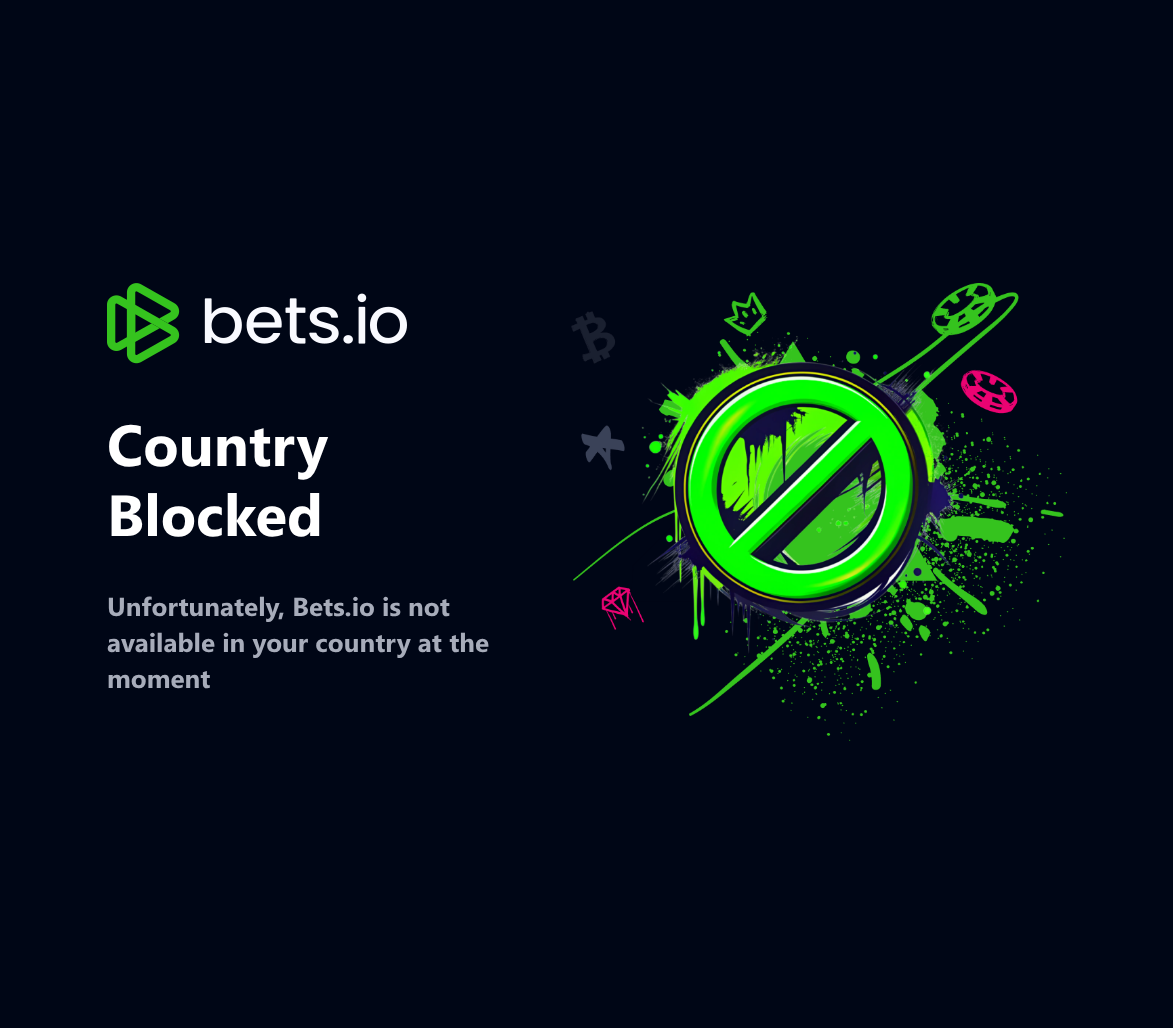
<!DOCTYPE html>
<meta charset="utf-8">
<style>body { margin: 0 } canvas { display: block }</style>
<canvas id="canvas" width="1173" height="1028"></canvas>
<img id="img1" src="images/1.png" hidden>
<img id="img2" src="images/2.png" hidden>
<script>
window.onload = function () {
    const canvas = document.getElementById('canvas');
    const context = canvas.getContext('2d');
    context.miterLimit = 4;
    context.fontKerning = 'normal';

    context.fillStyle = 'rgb(0, 6, 22)';
    context.fillRect(0, 0, 1173, 1028);
    context.drawImage(document.getElementById('img1'), 107, 283, 300, 81);
    context.drawImage(document.getElementById('img2'), 571, 283, 496, 458);
    context.font = 'bold 58px Segoe UI';
    context.fillStyle = 'rgb(255, 255, 255)';
    context.fillText('Country', 107, 466);
    context.fillText('Blocked', 107, 536);
    context.font = 'bold 26px Segoe UI';
    context.fillStyle = 'rgb(167, 172, 186)';
    context.fillText('Unfortunately, Bets.io is not', 107, 616);
    context.fillText('available in your country at the', 107, 652);
    context.fillText('moment', 107, 688);
};
</script>
